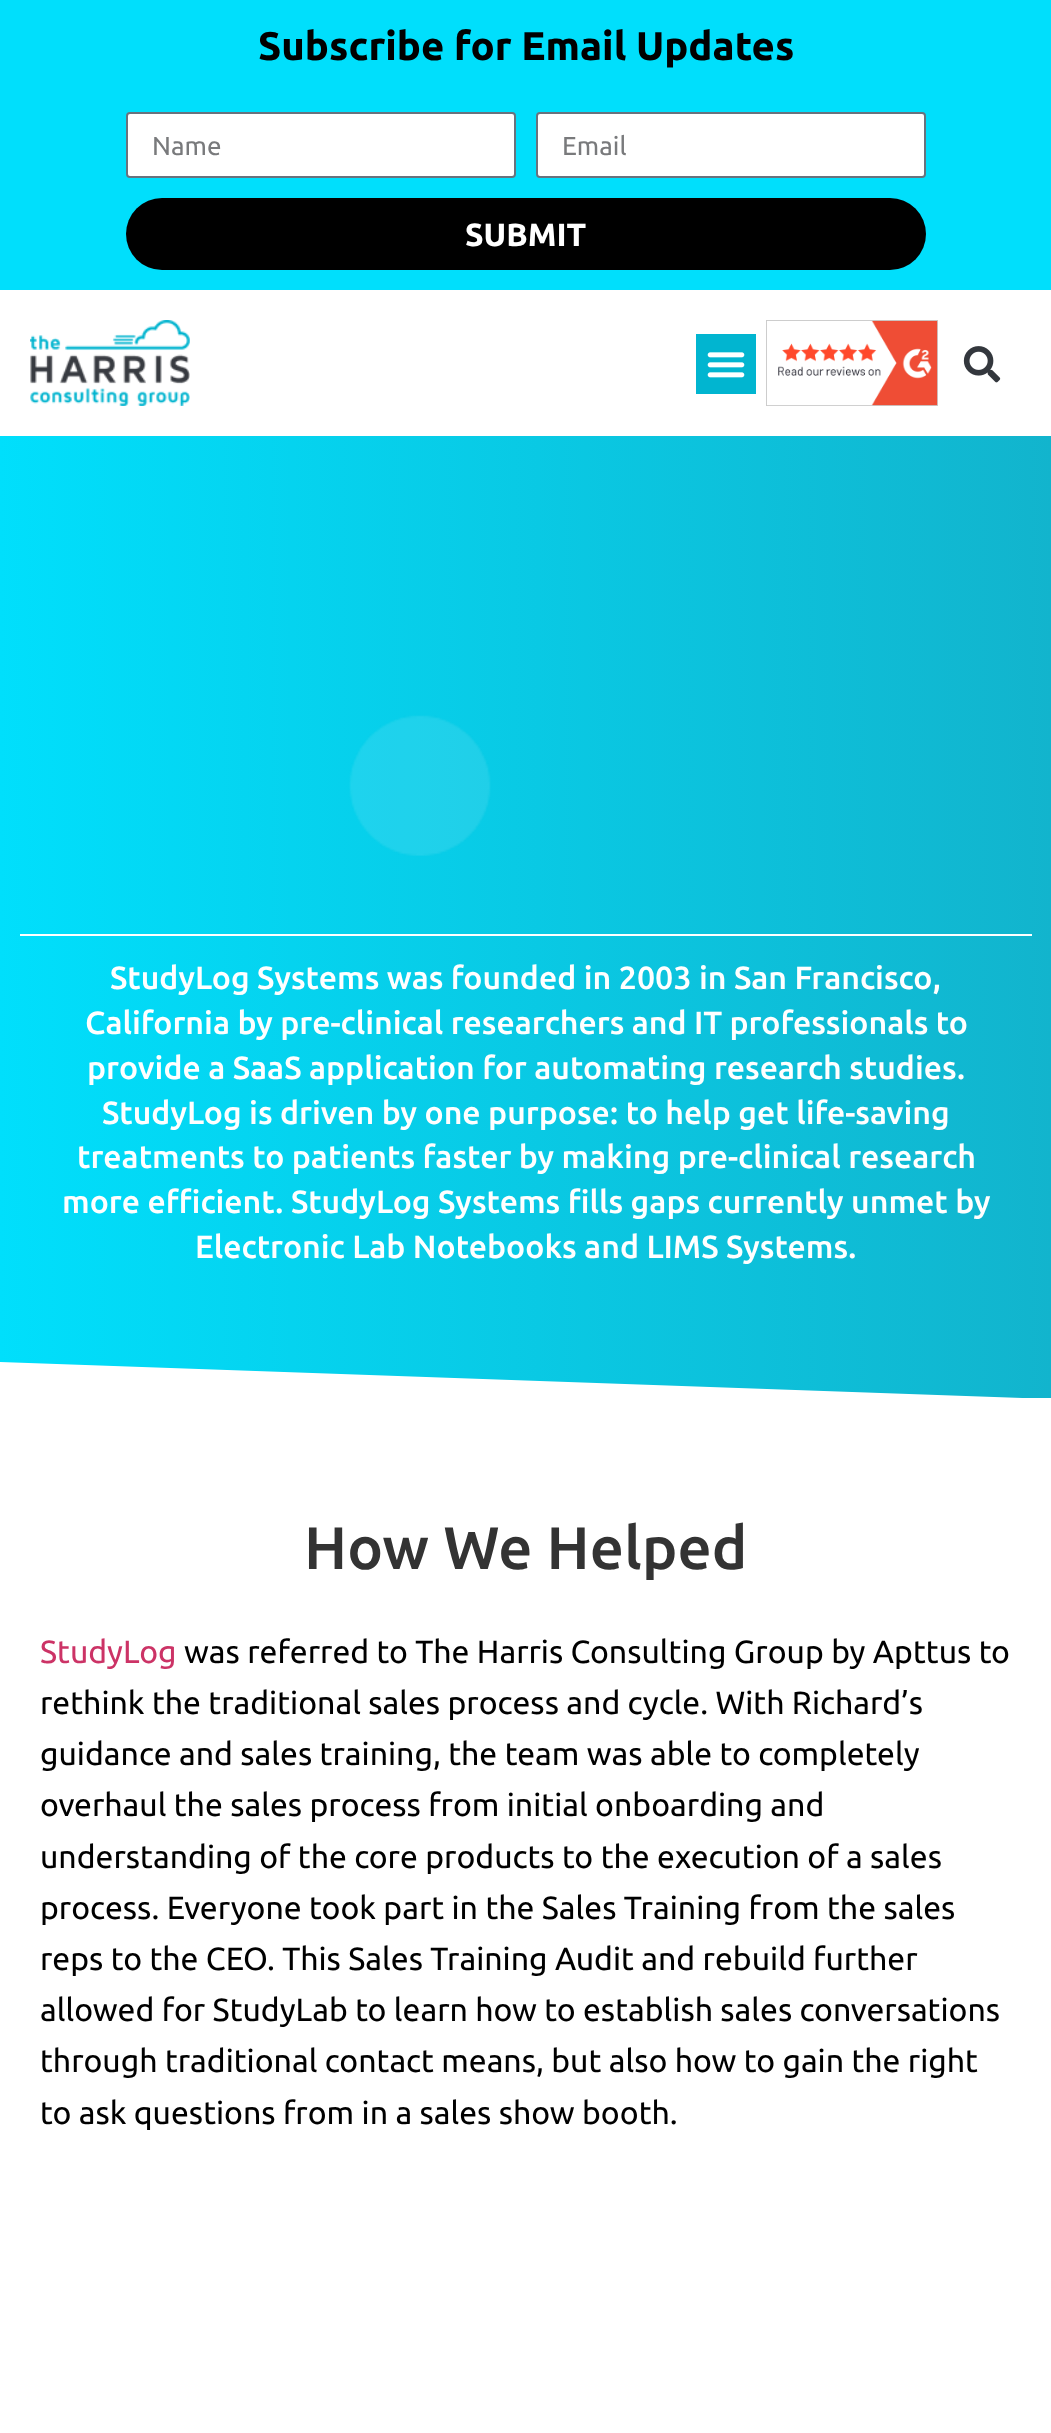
<!DOCTYPE html>
<meta charset="utf-8">
<style>body { margin: 0 } canvas { display: block }</style>
<canvas id="canvas" width="1051" height="2433"></canvas>
<img id="img1" src="images/1.png" hidden>
<img id="img2" src="images/2.png" hidden>
<img id="img3" src="images/3.png" hidden>
<img id="img4" src="images/4.png" hidden>
<img id="img5" src="images/5.png" hidden>
<script>
window.onload = function () {
    const canvas = document.getElementById('canvas');
    const context = canvas.getContext('2d');
    context.miterLimit = 4;
    context.fontKerning = 'normal';
    let gradient;

    context.fillStyle = 'rgb(255, 255, 255)';
    context.fillRect(0, 0, 1051, 2433);
    context.fillStyle = 'rgb(0, 223, 252)';
    context.fillRect(0, 0, 1051, 290);
    context.fillStyle = 'rgb(255, 255, 255)';
    context.beginPath();
    context.roundRect(127, 113, 388, 64, 3);
    context.fill();
    context.strokeStyle = 'rgb(105, 114, 125)';
    context.lineWidth = 2;
    context.stroke();
    context.beginPath();
    context.roundRect(537, 113, 388, 64, 3);
    context.fill();
    context.stroke();
    context.fillStyle = 'rgb(0, 0, 0)';
    context.beginPath();
    context.roundRect(126, 198, 800, 72, 36);
    context.fill();
    context.drawImage(document.getElementById('img1'), 30, 320, 160, 86);
    context.fillStyle = 'rgb(1, 181, 208)';
    context.fillRect(696, 334, 60, 60);
    context.drawImage(document.getElementById('img2'), 707, 352, 38, 26);
    context.drawImage(document.getElementById('img3'), 766, 320, 172, 86);
    context.drawImage(document.getElementById('img4'), 963, 346, 38, 37);
    gradient = context.createLinearGradient(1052, 917, 0, 917);
    gradient.addColorStop(0, 'rgb(18, 180, 205)');
    gradient.addColorStop(1, 'rgb(0, 223, 252)');
    context.fillStyle = gradient;
    context.fillRect(0, 436, 1051, 962);
    context.drawImage(document.getElementById('img5'), 349, 715, 142, 141);
    context.fillStyle = 'rgb(255, 255, 255)';
    context.fillRect(20, 934, 1012, 2);
    context.save();
    context.beginPath();
    context.rect(0, 1360, 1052, 40);
    context.clip();
    context.beginPath();
    context.moveTo(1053, 1399);
    context.lineTo(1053, 1402);
    context.lineTo(-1, 1402);
    context.lineTo(-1, 1362);
    context.closePath();
    context.fill();
    context.restore();
    context.font = 'bold 40px Ubuntu';
    context.fillStyle = 'rgb(0, 0, 0)';
    context.fillText('Subscribe for Email Updates', 258, 60);
    context.font = '26px Ubuntu';
    context.fillStyle = 'rgb(121, 122, 124)';
    context.fillText('Name', 152, 155);
    context.fillText('Email', 562, 155);
    context.font = 'bold 32px Ubuntu';
    context.fillStyle = 'rgb(255, 255, 255)';
    context.fillText('SUBMIT', 465, 246);
    context.font = '500 32px Ubuntu';
    context.fillText('StudyLog Systems was founded in 2003 in San Francisco,', 110, 989);
    context.fillText('California by pre-clinical researchers and IT professionals to', 85, 1034);
    context.fillText('provide a SaaS application for automating research studies.', 87, 1079);
    context.fillText('StudyLog is driven by one purpose: to help get life-saving', 102, 1124);
    context.fillText('treatments to patients faster by making pre-clinical research', 77, 1168);
    context.fillText('more efficient. StudyLog Systems fills gaps currently unmet by', 62, 1213);
    context.fillText('Electronic Lab Notebooks and LIMS Systems.', 195, 1258);
    context.font = '500 60px Ubuntu';
    context.fillStyle = 'rgb(51, 51, 51)';
    context.fillText('How We Helped', 304, 1569);
    context.font = '32px Ubuntu';
    context.fillStyle = 'rgb(204, 51, 102)';
    context.fillText('StudyLog', 40, 1663);
    context.fillStyle = 'rgb(0, 0, 0)';
    context.fillText('was referred to The Harris Consulting Group by Apttus to', 184, 1663);
    context.fillText('rethink the traditional sales process and cycle. With Richard’s', 40, 1714);
    context.fillText('guidance and sales training, the team was able to completely', 40, 1765);
    context.fillText('overhaul the sales process from initial onboarding and', 40, 1816);
    context.fillText('understanding of the core products to the execution of a sales', 40, 1868);
    context.fillText('process. Everyone took part in the Sales Training from the sales', 40, 1919);
    context.fillText('reps to the CEO. This Sales Training Audit and rebuild further', 40, 1970);
    context.fillText('allowed for StudyLab to learn how to establish sales conversations', 40, 2021);
    context.fillText('through traditional contact means, but also how to gain the right', 40, 2072);
    context.fillText('to ask questions from in a sales show booth.', 40, 2124);
};
</script>
